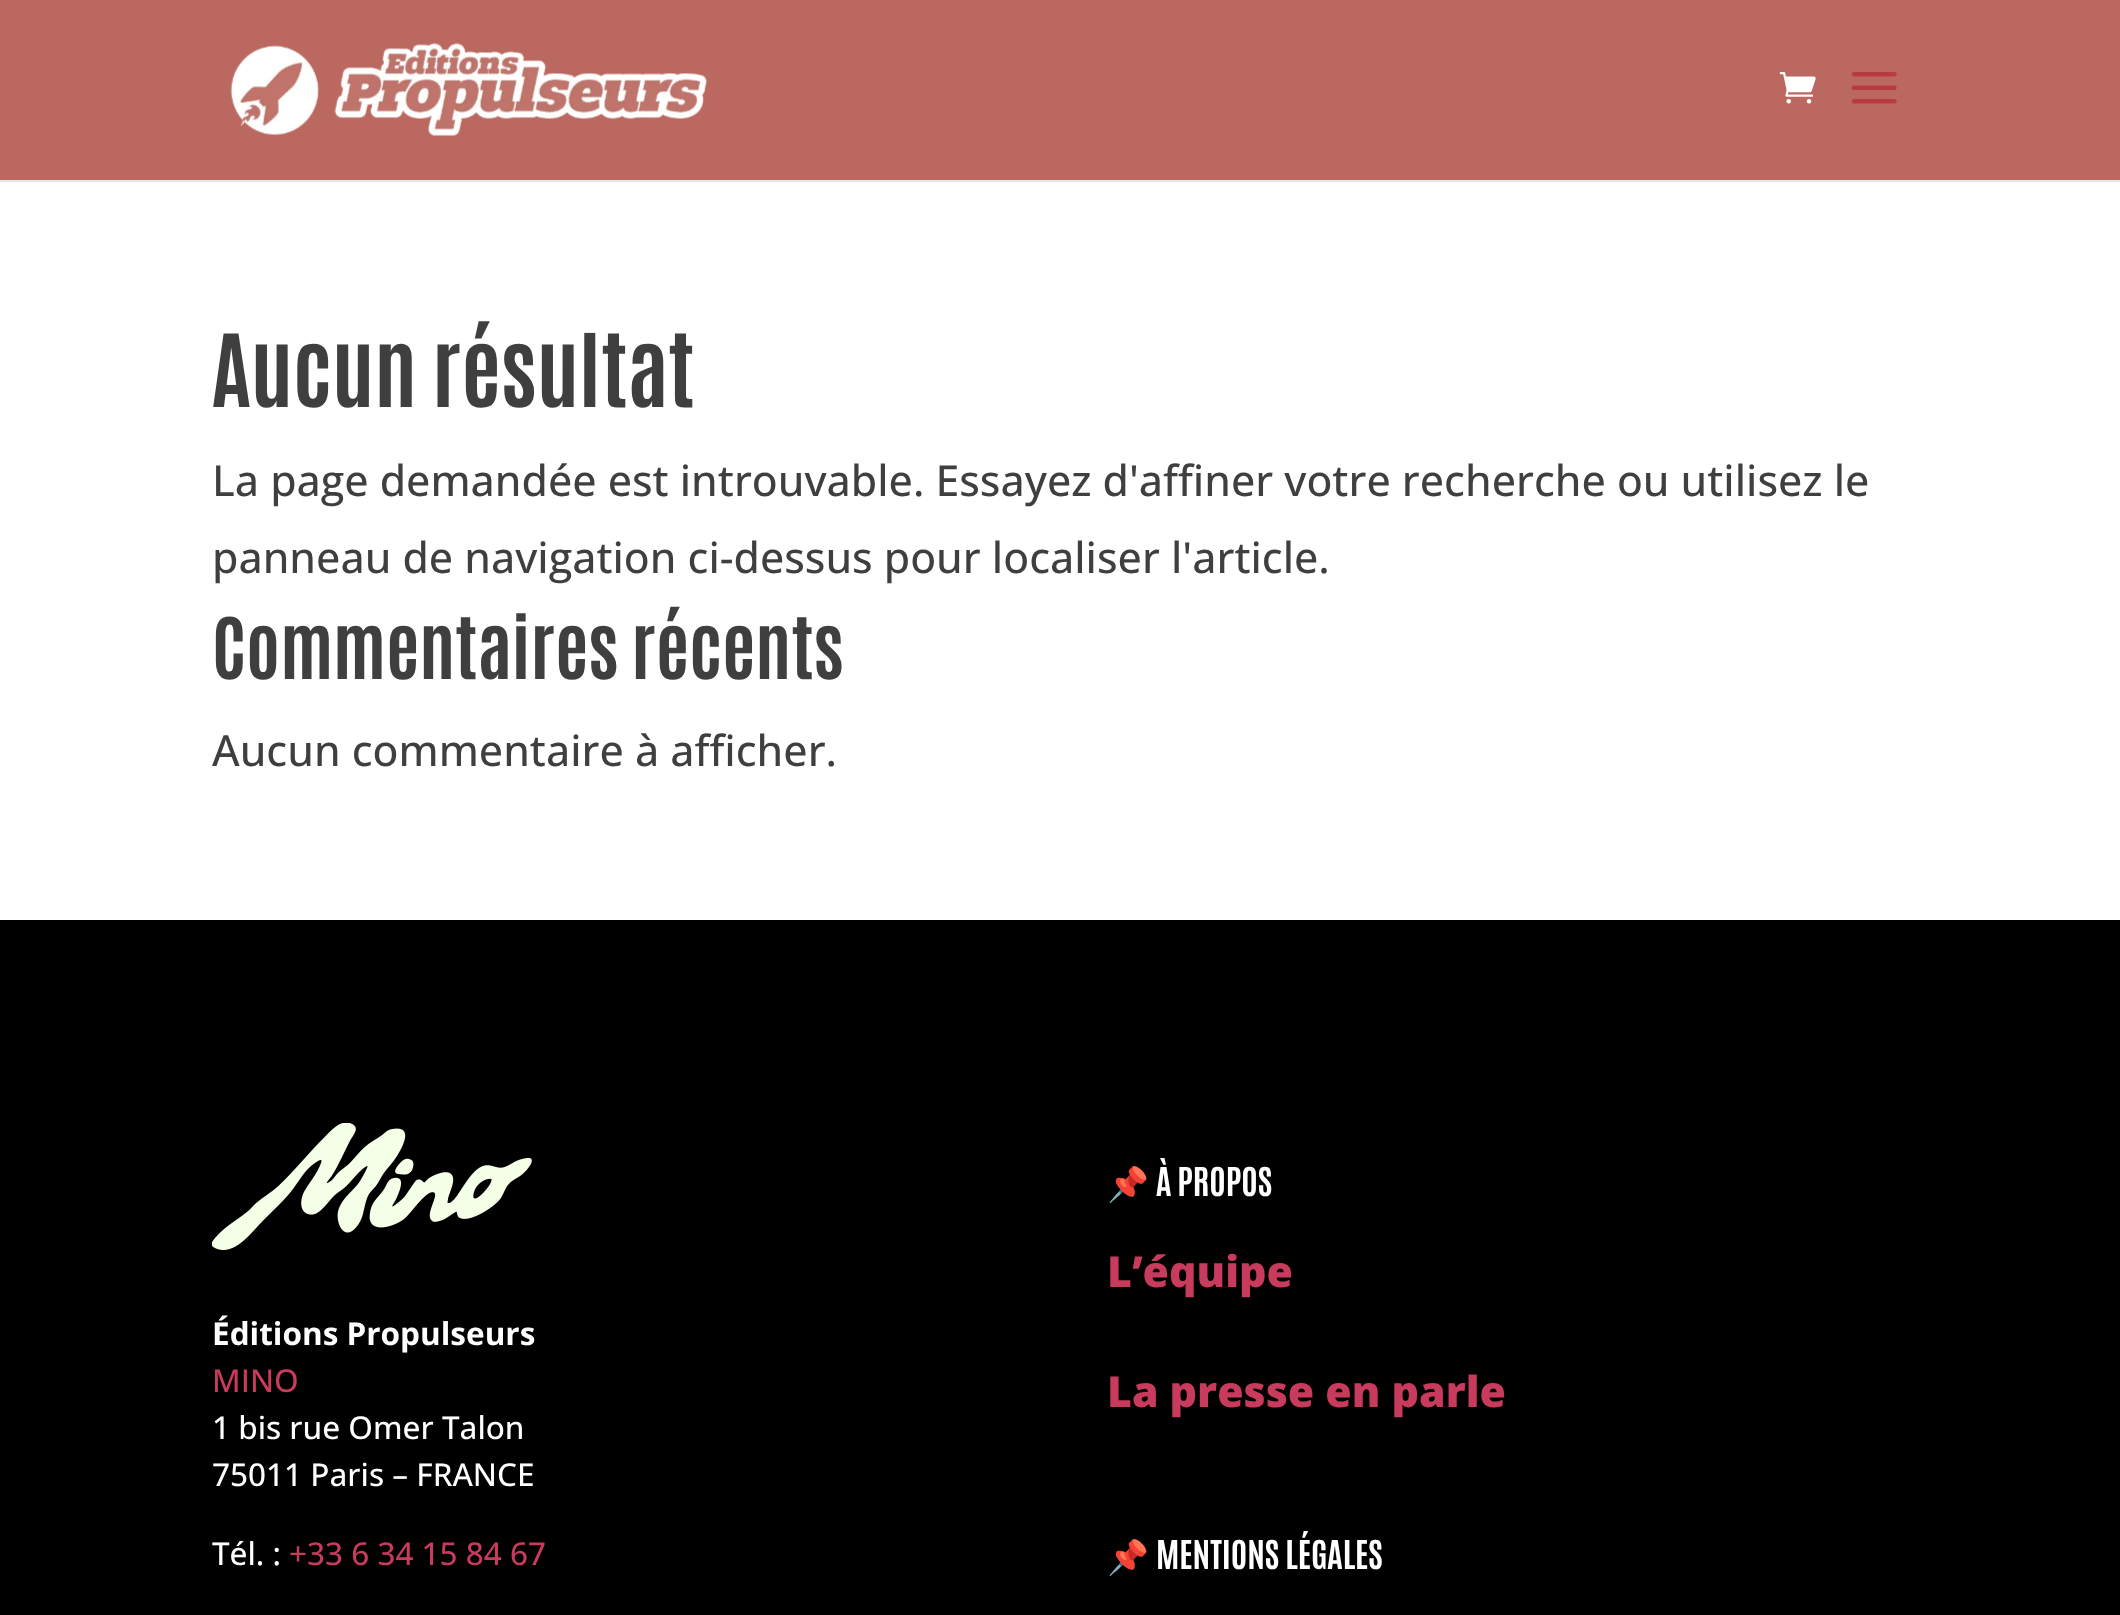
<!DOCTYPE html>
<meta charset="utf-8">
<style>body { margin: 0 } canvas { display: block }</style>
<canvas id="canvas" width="2120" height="1615"></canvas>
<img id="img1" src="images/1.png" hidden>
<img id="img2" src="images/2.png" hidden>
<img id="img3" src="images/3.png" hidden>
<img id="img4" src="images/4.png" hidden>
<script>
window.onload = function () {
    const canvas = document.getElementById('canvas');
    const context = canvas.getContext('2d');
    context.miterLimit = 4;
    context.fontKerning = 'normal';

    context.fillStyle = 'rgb(255, 255, 255)';
    context.fillRect(0, 0, 2120, 1615);
    context.fillStyle = 'rgb(230, 230, 230)';
    context.beginPath();
    context.moveTo(0, 180);
    context.lineTo(0, 182);
    context.lineTo(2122, 182);
    context.lineTo(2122, 2);
    context.lineTo(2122, 180);
    context.closePath();
    context.fill();
    context.fillStyle = 'rgb(187, 105, 96)';
    context.fillRect(0, 0, 2120, 180);
    context.drawImage(document.getElementById('img1'), 230, 43, 477, 93);
    context.drawImage(document.getElementById('img2'), 1779, 72, 37, 32);
    context.drawImage(document.getElementById('img3'), 1851, 72, 46, 32);
    context.fillStyle = 'rgb(0, 0, 0)';
    context.fillRect(0, 920, 2120, 695);
    context.drawImage(document.getElementById('img4'), 212, 1123, 320, 127);
    context.font = 'bold 85.5px Antonio';
    context.fillStyle = 'rgb(63, 63, 63)';
    context.fillText('Aucun résultat', 212, 407);
    context.font = '500 42.75px Open Sans';
    context.fillText('La page demandée est introuvable. Essayez d\'affiner votre recherche ou utilisez le', 212, 496);
    context.fillText('panneau de navigation ci-dessus pour localiser l\'article.', 212, 573);
    context.font = 'bold 72px Antonio';
    context.fillText('Commentaires récents', 212, 679);
    context.font = '500 42.75px Open Sans';
    context.fillText('Aucun commentaire à afficher.', 212, 766);
    context.font = 'bold 31.5px Open Sans';
    context.fillStyle = 'rgb(255, 255, 255)';
    context.fillText('Éditions Propulseurs', 212, 1345);
    context.font = '500 31.5px Open Sans';
    context.fillStyle = 'rgb(201, 59, 92)';
    context.fillText('MINO', 212, 1392);
    context.fillStyle = 'rgb(255, 255, 255)';
    context.fillText('1 bis rue Omer Talon', 212, 1439);
    context.fillText('75011 Paris – FRANCE', 212, 1486);
    context.fillText('Tél. :', 212, 1565);
    context.fillStyle = 'rgb(201, 59, 92)';
    context.fillText('+33 6 34 15 84 67', 289, 1565);
    context.font = 'bold 33.75px Noto Color Emoji';
    context.fillStyle = 'rgb(255, 255, 255)';
    context.fillText('📌', 1107, 1196);
    context.font = 'bold 33.75px Antonio';
    context.fillText('À PROPOS', 1156, 1196);
    context.font = '800 42.75px Open Sans';
    context.fillStyle = 'rgb(201, 59, 92)';
    context.fillText('L’équipe', 1107, 1287);
    context.fillText('La presse en parle', 1107, 1407);
    context.font = 'bold 33.75px Noto Color Emoji';
    context.fillStyle = 'rgb(255, 255, 255)';
    context.fillText('📌', 1107, 1569);
    context.font = 'bold 33.75px Antonio';
    context.fillText('MENTIONS LÉGALES', 1156, 1569);
};
</script>
